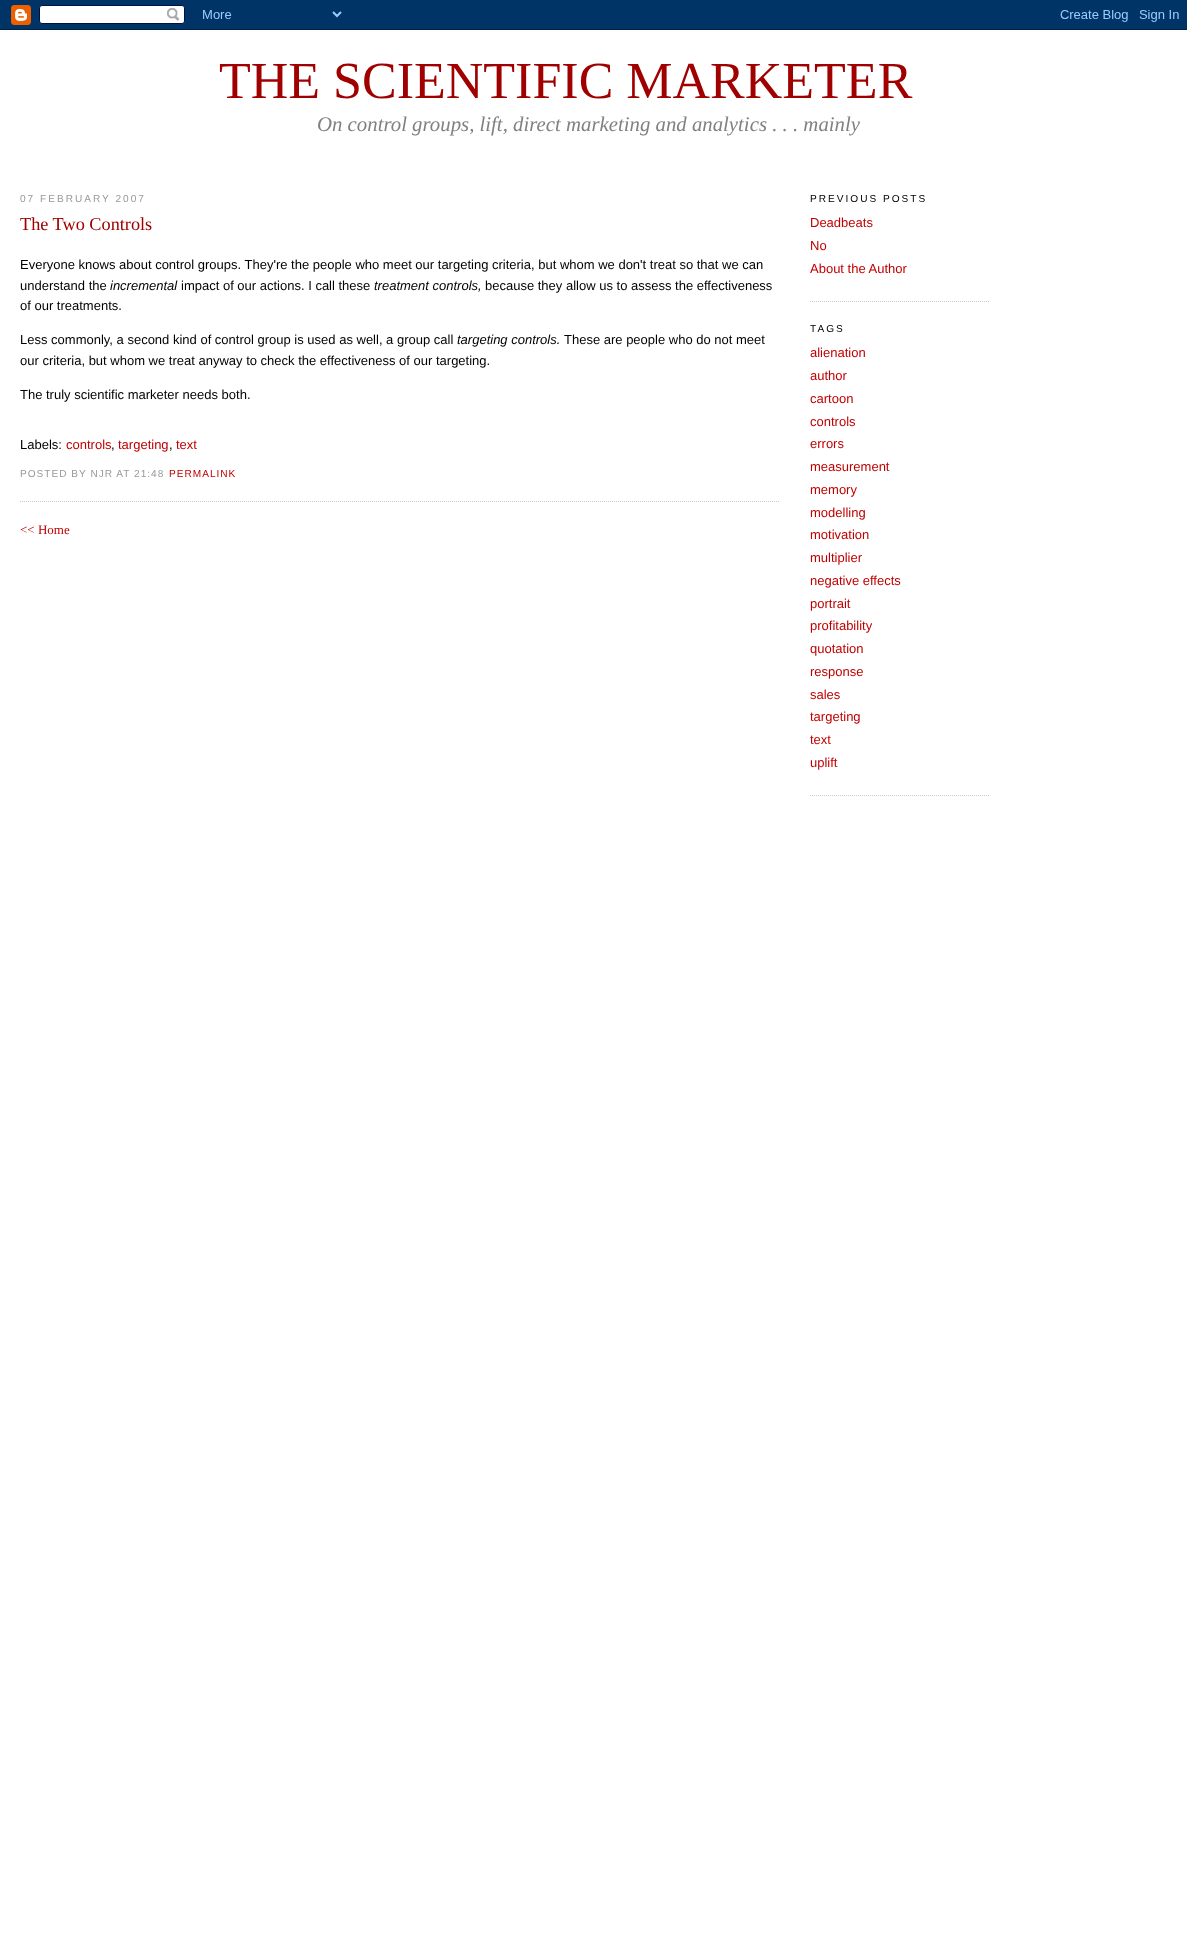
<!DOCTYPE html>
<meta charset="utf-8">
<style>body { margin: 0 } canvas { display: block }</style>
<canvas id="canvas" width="1187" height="1960"></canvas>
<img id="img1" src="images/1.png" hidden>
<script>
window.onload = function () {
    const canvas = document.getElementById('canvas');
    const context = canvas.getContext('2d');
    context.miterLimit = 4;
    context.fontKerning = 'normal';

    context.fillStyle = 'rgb(255, 255, 255)';
    context.fillRect(0, 0, 1187, 1960);
    context.drawImage(document.getElementById('img1'), 0, 0, 1187, 30);
    context.beginPath();
    context.moveTo(20, 501.5);
    context.lineTo(780, 501.5);
    context.strokeStyle = 'rgb(204, 204, 204)';
    context.setLineDash([1, 1]);
    context.stroke();
    context.beginPath();
    context.moveTo(810, 301.5);
    context.lineTo(990, 301.5);
    context.stroke();
    context.beginPath();
    context.moveTo(810, 795.5);
    context.lineTo(990, 795.5);
    context.stroke();
    context.font = '52px Liberation Serif';
    context.fillStyle = 'rgb(160, 0, 0)';
    context.fillText('THE SCIENTIFIC MARKETER', 219, 98);
    context.font = 'italic 20.8px Liberation Serif';
    context.fillStyle = 'rgb(128, 128, 128)';
    context.fillText('On control groups, lift, direct marketing and analytics . . . mainly', 317, 131);
    context.letterSpacing = '2px';
    context.font = '10.1px Liberation Sans';
    context.fillStyle = 'rgb(153, 153, 153)';
    context.fillText('07 FEBRUARY 2007', 20, 202);
    context.letterSpacing = '0px';
    context.font = '18.25px Liberation Serif';
    context.fillStyle = 'rgb(160, 0, 0)';
    context.fillText('The Two Controls', 20, 230);
    context.font = '13px Liberation Sans';
    context.fillStyle = 'rgb(0, 0, 0)';
    context.fillText('Everyone knows about control groups. They\'re the people who meet our targeting criteria, but whom we don\'t treat so that we can', 20, 269);
    context.fillText('understand the', 20, 290);
    context.font = 'italic 13px Liberation Sans';
    context.fillText('incremental', 110, 290);
    context.font = '13px Liberation Sans';
    context.fillText('impact of our actions. I call these', 181, 290);
    context.font = 'italic 13px Liberation Sans';
    context.fillText('treatment controls,', 374, 290);
    context.font = '13px Liberation Sans';
    context.fillText('because they allow us to assess the effectiveness', 485, 290);
    context.fillText('of our treatments.', 20, 310);
    context.fillText('Less commonly, a second kind of control group is used as well, a group call', 20, 344);
    context.font = 'italic 13px Liberation Sans';
    context.fillText('targeting controls.', 457, 344);
    context.font = '13px Liberation Sans';
    context.fillText('These are people who do not meet', 564, 344);
    context.fillText('our criteria, but whom we treat anyway to check the effectiveness of our targeting.', 20, 365);
    context.fillText('The truly scientific marketer needs both.', 20, 399);
    context.fillText('Labels:', 20, 449);
    context.fillStyle = 'rgb(192, 0, 0)';
    context.fillText('controls', 66, 449);
    context.fillStyle = 'rgb(0, 0, 0)';
    context.fillText(',', 111, 449);
    context.fillStyle = 'rgb(192, 0, 0)';
    context.fillText('targeting', 118, 449);
    context.fillStyle = 'rgb(0, 0, 0)';
    context.fillText(',', 169, 449);
    context.fillStyle = 'rgb(192, 0, 0)';
    context.fillText('text', 176, 449);
    context.letterSpacing = '1px';
    context.font = '10.1px Liberation Sans';
    context.fillStyle = 'rgb(153, 153, 153)';
    context.fillText('POSTED BY NJR AT 21:48', 20, 477);
    context.fillStyle = 'rgb(192, 0, 0)';
    context.fillText('PERMALINK', 169, 477);
    context.letterSpacing = '0px';
    context.font = '13px Liberation Serif';
    context.fillText('<< Home', 20, 534);
    context.letterSpacing = '2px';
    context.font = '10.1px Liberation Sans';
    context.fillStyle = 'rgb(0, 0, 0)';
    context.fillText('PREVIOUS POSTS', 810, 202);
    context.letterSpacing = '0px';
    context.font = '13px Liberation Sans';
    context.fillStyle = 'rgb(192, 0, 0)';
    context.fillText('Deadbeats', 810, 227);
    context.fillText('No', 810, 250);
    context.fillText('About the Author', 810, 273);
    context.letterSpacing = '2px';
    context.font = '10.1px Liberation Sans';
    context.fillStyle = 'rgb(0, 0, 0)';
    context.fillText('TAGS', 810, 332);
    context.letterSpacing = '0px';
    context.font = '13px Liberation Sans';
    context.fillStyle = 'rgb(192, 0, 0)';
    context.fillText('alienation', 810, 357);
    context.fillText('author', 810, 380);
    context.fillText('cartoon', 810, 403);
    context.fillText('controls', 810, 426);
    context.fillText('errors', 810, 448);
    context.fillText('measurement', 810, 471);
    context.fillText('memory', 810, 494);
    context.fillText('modelling', 810, 517);
    context.fillText('motivation', 810, 539);
    context.fillText('multiplier', 810, 562);
    context.fillText('negative effects', 810, 585);
    context.fillText('portrait', 810, 608);
    context.fillText('profitability', 810, 630);
    context.fillText('quotation', 810, 653);
    context.fillText('response', 810, 676);
    context.fillText('sales', 810, 699);
    context.fillText('targeting', 810, 721);
    context.fillText('text', 810, 744);
    context.fillText('uplift', 810, 767);
};
</script>
